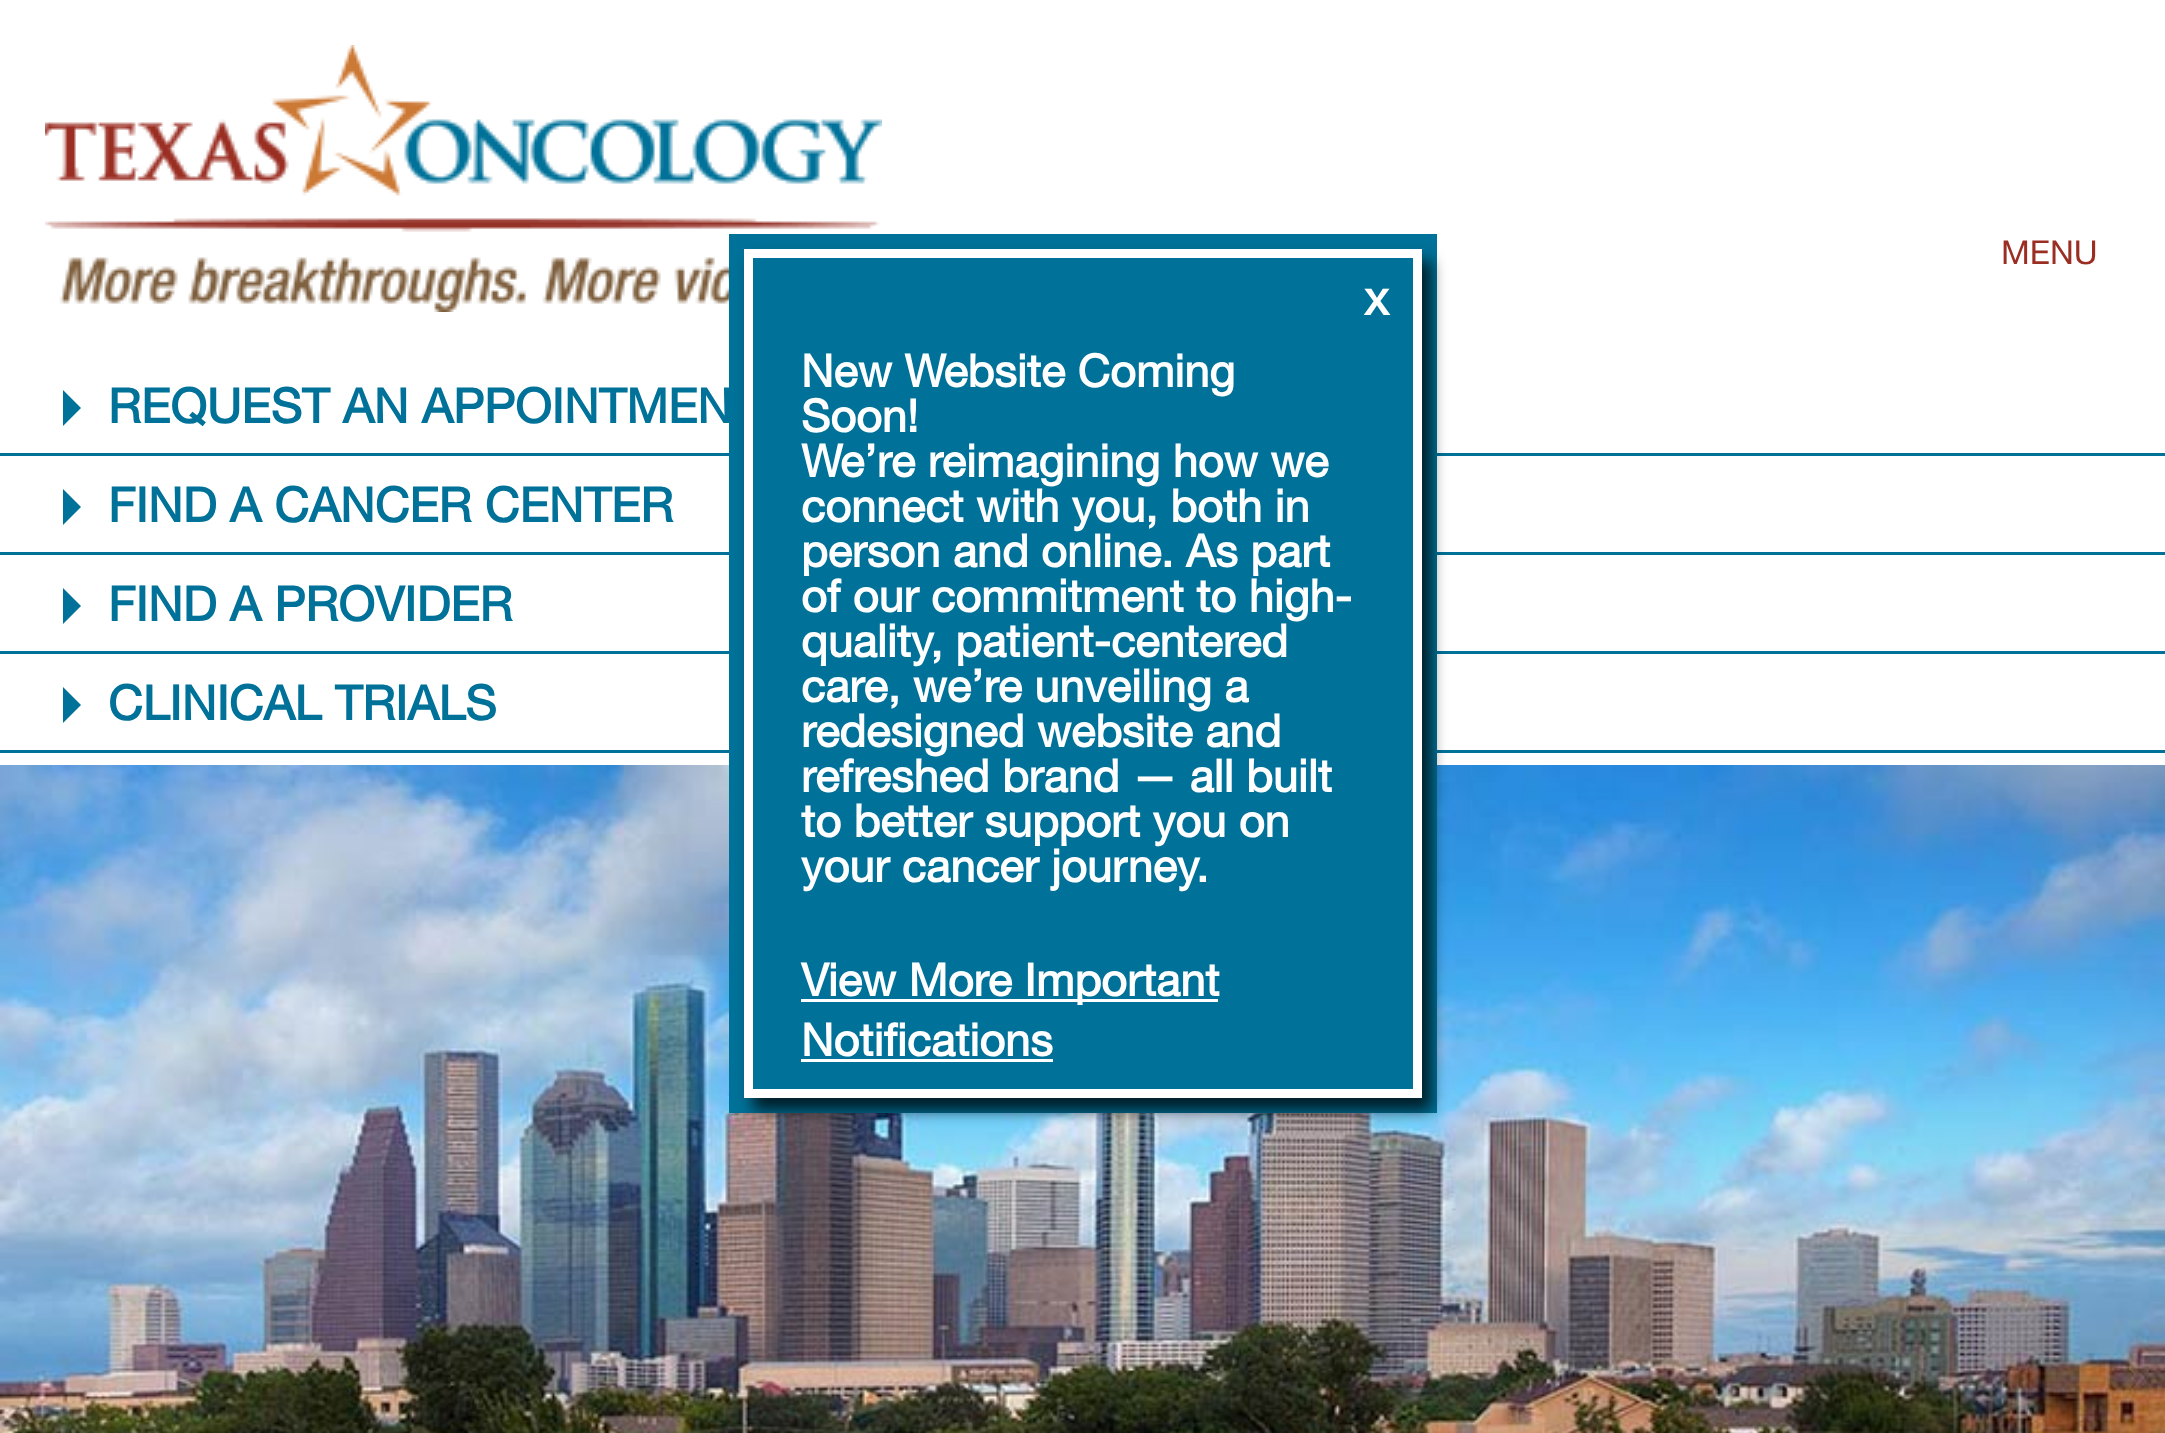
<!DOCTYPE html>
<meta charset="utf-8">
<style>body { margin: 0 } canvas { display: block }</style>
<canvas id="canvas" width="2165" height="1433"></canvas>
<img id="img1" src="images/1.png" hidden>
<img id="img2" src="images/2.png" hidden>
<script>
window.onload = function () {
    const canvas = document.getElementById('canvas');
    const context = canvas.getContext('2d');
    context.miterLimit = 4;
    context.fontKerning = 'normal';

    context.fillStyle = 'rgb(255, 255, 255)';
    context.fillRect(0, 0, 2165, 1433);
    context.drawImage(document.getElementById('img1'), 45, 45, 837, 267);
    context.fillStyle = 'rgb(0, 113, 152)';
    context.beginPath();
    context.moveTo(63, 426);
    context.lineTo(63, 390);
    context.lineTo(81, 408);
    context.closePath();
    context.fill();
    context.fillRect(0, 453, 2165, 3);
    context.beginPath();
    context.moveTo(63, 525);
    context.lineTo(63, 489);
    context.lineTo(81, 507);
    context.closePath();
    context.fill();
    context.fillRect(0, 552, 2165, 3);
    context.beginPath();
    context.moveTo(63, 624);
    context.lineTo(63, 588);
    context.lineTo(81, 606);
    context.closePath();
    context.fill();
    context.fillRect(0, 651, 2165, 3);
    context.beginPath();
    context.moveTo(63, 723);
    context.lineTo(63, 687);
    context.lineTo(81, 705);
    context.closePath();
    context.fill();
    context.fillRect(0, 750, 2165, 3);
    context.drawImage(document.getElementById('img2'), 0, 765, 2165, 668);
    context.fillRect(729, 234, 708, 879);
    context.save();
    context.beginPath();
    context.moveTo(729, 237);
    context.lineTo(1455, 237);
    context.lineTo(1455, 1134);
    context.lineTo(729, 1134);
    context.closePath();
    context.moveTo(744, 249);
    context.lineTo(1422, 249);
    context.lineTo(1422, 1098);
    context.lineTo(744, 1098);
    context.closePath();
    context.clip('evenodd');
    context.fillStyle = 'rgba(0, 0, 0, 0.75)';
    context.filter = 'blur(7.5px)';
    context.beginPath();
    context.rect(753, 261, 678, 849);
    context.fill();
    context.filter = 'none';
    context.restore();
    context.strokeStyle = 'rgb(255, 255, 255)';
    context.lineWidth = 9;
    context.strokeRect(748.5, 253.5, 669, 840);
    context.fillStyle = 'rgb(255, 255, 255)';
    context.fillRect(801, 999, 417, 3);
    context.fillRect(801, 1059, 252, 3);
    context.font = '33px "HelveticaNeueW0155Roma"';
    context.fillStyle = 'rgb(154, 46, 35)';
    context.fillText('MENU', 2001, 264);
    context.font = 'bold 48px "HelveticaNeueW0155Roma"';
    context.fillStyle = 'rgb(0, 113, 152)';
    context.fillText('REQUEST AN APPOINTMEN', 108, 423);
    context.fillText('FIND A CANCER CENTER', 108, 522);
    context.fillText('FIND A PROVIDER', 108, 621);
    context.fillText('CLINICAL TRIALS', 108, 720);
    context.fillStyle = 'rgb(255, 255, 255)';
    context.fillText('x', 1364, 315);
    context.font = 'bold 45px "HelveticaNeueW0155Roma"';
    context.fillText('New Website Coming', 801, 387);
    context.fillText('Soon!', 801, 432);
    context.fillText('We’re reimagining how we', 801, 477);
    context.fillText('connect with you, both in', 801, 522);
    context.fillText('person and online. As part', 801, 567);
    context.fillText('of our commitment to high-', 801, 612);
    context.fillText('quality, patient-centered', 801, 657);
    context.fillText('care, we’re unveiling a', 801, 702);
    context.fillText('redesigned website and', 801, 747);
    context.fillText('refreshed brand — all built', 801, 792);
    context.fillText('to better support you on', 801, 837);
    context.fillText('your cancer journey.', 801, 882);
    context.fillText('View More Important', 801, 996);
    context.fillText('Notifications', 801, 1056);
};
</script>
